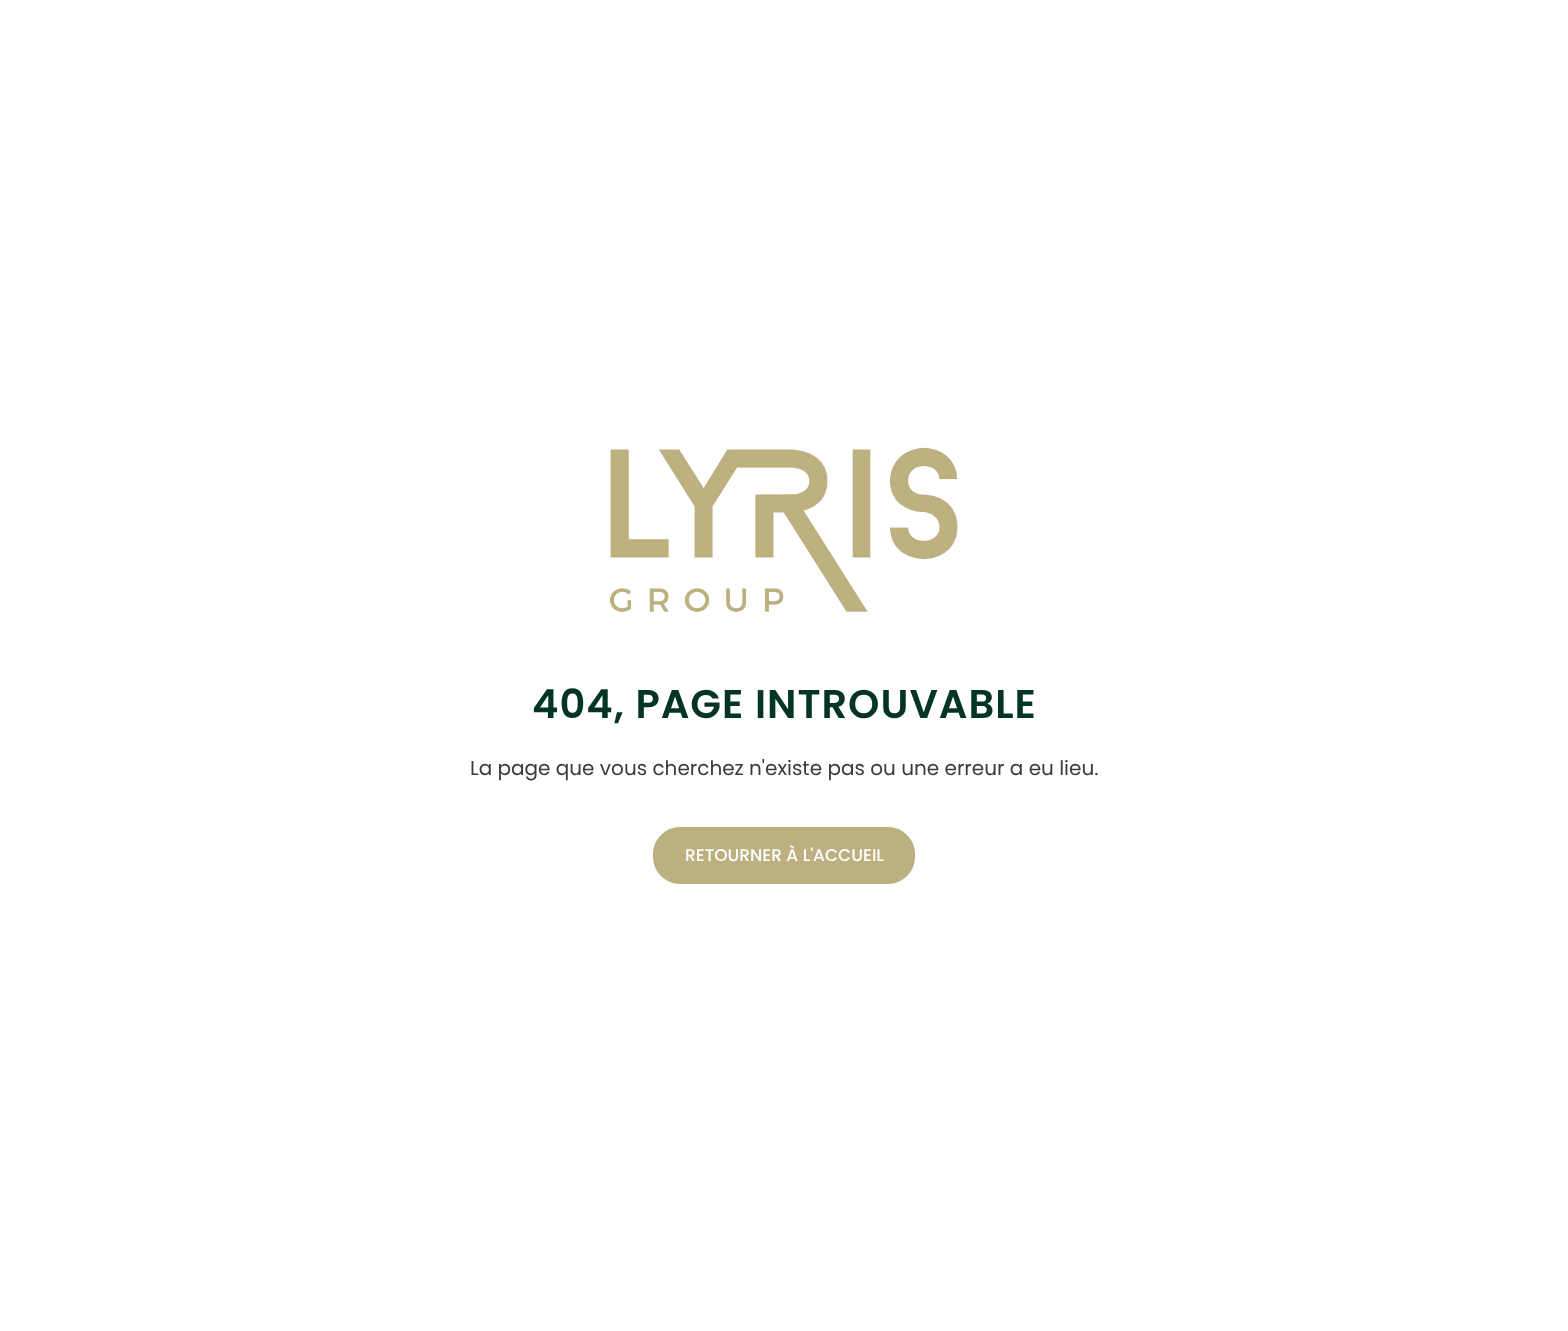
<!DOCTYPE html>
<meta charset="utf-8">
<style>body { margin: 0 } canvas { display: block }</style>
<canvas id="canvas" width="1568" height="1331"></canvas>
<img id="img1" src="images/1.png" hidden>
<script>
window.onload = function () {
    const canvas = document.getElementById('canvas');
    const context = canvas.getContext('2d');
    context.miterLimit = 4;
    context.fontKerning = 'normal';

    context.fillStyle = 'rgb(255, 255, 255)';
    context.fillRect(0, 0, 1568, 1331);
    context.drawImage(document.getElementById('img1'), 609, 447, 349, 165);
    context.fillStyle = 'rgb(188, 175, 128)';
    context.beginPath();
    context.roundRect(654, 828, 260, 55, 26);
    context.fill();
    context.strokeStyle = 'rgb(188, 175, 128)';
    context.lineWidth = 2;
    context.stroke();
    context.letterSpacing = '1px';
    context.font = '600 40px Poppins';
    context.fillStyle = 'rgb(4, 53, 36)';
    context.fillText('404, PAGE INTROUVABLE', 532, 718);
    context.letterSpacing = '0px';
    context.font = '20px Poppins';
    context.fillStyle = 'rgb(59, 59, 59)';
    context.fillText('La page que vous cherchez n\'existe pas ou une erreur a eu lieu.', 470, 775);
    context.font = '500 17px Poppins';
    context.fillStyle = 'rgb(255, 255, 255)';
    context.fillText('RETOURNER À L\'ACCUEIL', 685, 861);
};
</script>
